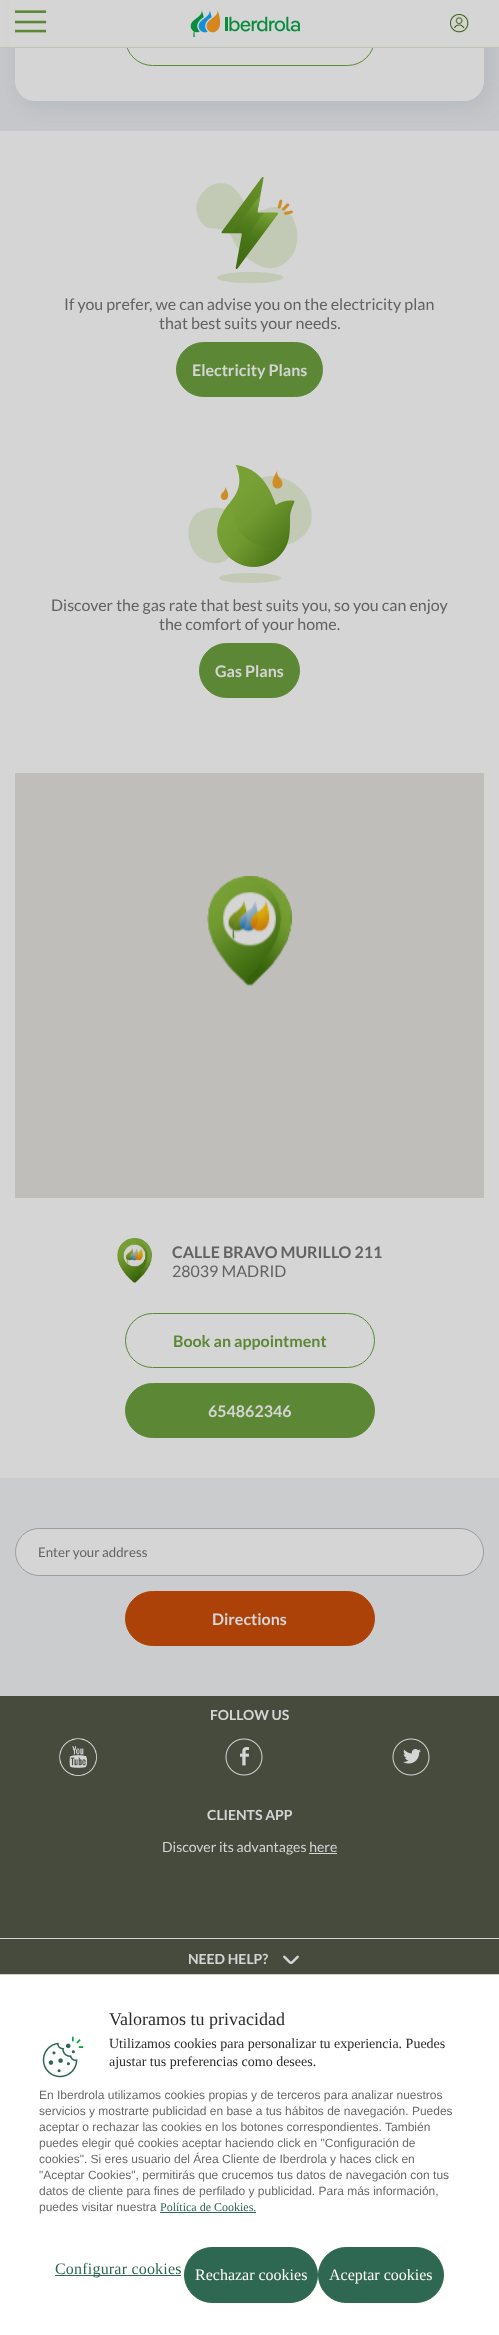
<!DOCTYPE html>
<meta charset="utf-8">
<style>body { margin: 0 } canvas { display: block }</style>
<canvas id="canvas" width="499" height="2335"></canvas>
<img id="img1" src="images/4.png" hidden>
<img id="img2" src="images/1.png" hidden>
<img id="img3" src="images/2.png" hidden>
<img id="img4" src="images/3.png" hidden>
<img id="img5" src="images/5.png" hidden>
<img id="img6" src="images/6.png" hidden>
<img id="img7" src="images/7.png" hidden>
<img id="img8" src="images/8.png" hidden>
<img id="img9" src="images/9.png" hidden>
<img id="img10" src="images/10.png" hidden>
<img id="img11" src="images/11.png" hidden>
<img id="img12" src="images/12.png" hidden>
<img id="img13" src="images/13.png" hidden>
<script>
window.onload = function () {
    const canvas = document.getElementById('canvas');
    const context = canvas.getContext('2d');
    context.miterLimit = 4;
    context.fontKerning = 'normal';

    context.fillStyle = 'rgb(213, 213, 213)';
    context.fillRect(0, 0, 499, 2335);
    context.fillStyle = 'rgb(202, 203, 205)';
    context.fillRect(0, 48, 499, 83);
    context.drawImage(document.getElementById('img1'), 0, 48, 499, 83);
    context.fillStyle = 'rgba(122, 128, 138, 0.2)';
    context.filter = 'blur(10px)';
    context.beginPath();
    context.roundRect(20, -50, 469, 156, 20);
    context.fill();
    context.filter = 'none';
    context.fillStyle = 'rgb(213, 213, 213)';
    context.beginPath();
    context.roundRect(15, -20, 469, 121, 20);
    context.fill();
    context.beginPath();
    context.roundRect(125.5, 11.5, 249, 54, 27);
    context.strokeStyle = 'rgb(92, 136, 54)';
    context.stroke();
    context.fillRect(9, 0, 490, 47);
    context.fillStyle = 'rgb(189, 198, 181)';
    context.fillRect(0, 47, 499, 1);
    context.drawImage(document.getElementById('img2'), 15, 10, 32, 23);
    context.drawImage(document.getElementById('img3'), 190, 10, 110, 27);
    context.drawImage(document.getElementById('img4'), 450, 14, 19, 19);
    context.drawImage(document.getElementById('img5'), 196, 177, 102, 107);
    context.fillStyle = 'rgb(92, 136, 54)';
    context.beginPath();
    context.roundRect(176.5, 342.5, 146, 54, 27);
    context.fill();
    context.stroke();
    context.drawImage(document.getElementById('img6'), 188, 464, 124, 119);
    context.beginPath();
    context.roundRect(199.5, 643.5, 100, 54, 27);
    context.fill();
    context.stroke();
    context.fillStyle = 'rgb(192, 190, 187)';
    context.fillRect(15, 773, 469, 425);
    context.drawImage(document.getElementById('img7'), 207, 876, 85, 110);
    context.drawImage(document.getElementById('img8'), 117, 1238, 35, 45);
    context.beginPath();
    context.roundRect(125.5, 1313.5, 249, 54, 27);
    context.stroke();
    context.fillStyle = 'rgb(92, 136, 54)';
    context.beginPath();
    context.roundRect(125.5, 1383.5, 249, 54, 27);
    context.fill();
    context.stroke();
    context.fillStyle = 'rgb(203, 204, 205)';
    context.fillRect(0, 1478, 499, 218);
    context.fillStyle = 'rgb(213, 213, 213)';
    context.beginPath();
    context.roundRect(15.5, 1528.5, 468, 47, 23.5);
    context.fill();
    context.strokeStyle = 'rgb(157, 157, 157)';
    context.stroke();
    context.fillStyle = 'rgb(173, 66, 9)';
    context.beginPath();
    context.roundRect(125.5, 1591.5, 249, 54, 27);
    context.fill();
    context.strokeStyle = 'rgb(173, 66, 9)';
    context.stroke();
    context.fillStyle = 'rgb(70, 75, 62)';
    context.fillRect(0, 1696, 499, 278);
    context.fillStyle = 'rgb(213, 213, 213)';
    context.fillRect(0, 1938, 499, 1);
    context.drawImage(document.getElementById('img9'), 59, 1738, 38, 38);
    context.drawImage(document.getElementById('img10'), 225, 1738, 38, 38);
    context.drawImage(document.getElementById('img11'), 392, 1738, 38, 38);
    context.fillRect(309, 1853, 28, 1);
    context.drawImage(document.getElementById('img12'), 283, 1955, 16, 9);
    context.fillStyle = 'rgb(255, 255, 255)';
    context.fillRect(0, 1975, 499, 360);
    context.fillStyle = 'rgb(216, 207, 199)';
    context.fillRect(0, 1974, 499, 1);
    context.fillStyle = 'rgb(47, 104, 82)';
    context.fillRect(160, 2212, 96, 1);
    context.drawImage(document.getElementById('img13'), 42, 2036, 42, 42);
    context.fillRect(55, 2275, 126, 1);
    context.beginPath();
    context.roundRect(184.5, 2247.5, 133, 55, 27.5);
    context.fill();
    context.strokeStyle = 'rgb(47, 104, 82)';
    context.stroke();
    context.beginPath();
    context.roundRect(318.5, 2247.5, 125, 55, 27.5);
    context.fill();
    context.stroke();
    context.font = '16px Lato';
    context.fillStyle = 'rgb(98, 98, 98)';
    context.fillText('If you prefer, we can advise you on the electricity plan', 64, 310);
    context.fillText('that best suits your needs.', 159, 329);
    context.font = 'bold 16px Lato';
    context.fillStyle = 'rgb(213, 213, 213)';
    context.fillText('Electricity Plans', 192, 376);
    context.font = '16px Lato';
    context.fillStyle = 'rgb(98, 98, 98)';
    context.fillText('Discover the gas rate that best suits you, so you can enjoy', 51, 611);
    context.fillText('the comfort of your home.', 159, 630);
    context.font = 'bold 16px Lato';
    context.fillStyle = 'rgb(213, 213, 213)';
    context.fillText('Gas Plans', 215, 677);
    context.fillStyle = 'rgb(98, 98, 98)';
    context.fillText('CALLE BRAVO MURILLO 211', 172, 1258);
    context.font = '16px Lato';
    context.fillText('28039 MADRID', 172, 1277);
    context.font = 'bold 16px Lato';
    context.fillStyle = 'rgb(92, 136, 54)';
    context.fillText('Book an appointment', 173, 1347);
    context.fillStyle = 'rgb(213, 213, 213)';
    context.fillText('654862346', 208, 1417);
    context.font = '13.25px Lato';
    context.fillStyle = 'rgb(98, 98, 98)';
    context.fillText('Enter your address', 38, 1557);
    context.font = 'bold 16px Lato';
    context.fillStyle = 'rgb(213, 213, 213)';
    context.fillText('Directions', 212, 1625);
    context.font = 'bold 14px Lato';
    context.fillText('FOLLOW US', 210, 1720);
    context.fillText('CLIENTS APP', 207, 1820);
    context.font = '14px Lato';
    context.fillText('Discover its advantages here', 162, 1852);
    context.font = 'bold 14px Lato';
    context.fillText('NEED HELP?', 188, 1964);
    context.font = '18px Liberation Serif';
    context.fillStyle = 'rgb(44, 44, 44)';
    context.fillText('Valoramos tu privacidad', 109, 2025);
    context.font = '14px Liberation Serif';
    context.fillText('Utilizamos cookies para personalizar tu experiencia. Puedes', 109, 2048);
    context.fillText('ajustar tus preferencias como desees.', 109, 2066);
    context.font = '12px Liberation Sans';
    context.fillStyle = 'rgb(105, 105, 105)';
    context.fillText('En Iberdrola utilizamos cookies propias y de terceros para analizar nuestros', 39, 2099);
    context.fillText('servicios y mostrarte publicidad en base a tus hábitos de navegación. Puedes', 39, 2115);
    context.fillText('aceptar o rechazar las cookies en los botones correspondientes. También', 39, 2131);
    context.fillText('puedes elegir qué cookies aceptar haciendo click en "Configuración de', 39, 2147);
    context.fillText('cookies". Si eres usuario del Área Cliente de Iberdrola y haces click en', 39, 2163);
    context.fillText('"Aceptar Cookies", permitirás que crucemos tus datos de navegación con tus', 39, 2179);
    context.fillText('datos de cliente para fines de perfilado y publicidad. Para más información,', 39, 2195);
    context.fillText('puedes visitar nuestra', 39, 2211);
    context.font = '12px Liberation Serif';
    context.fillStyle = 'rgb(47, 104, 82)';
    context.fillText('Política de Cookies.', 160, 2211);
    context.letterSpacing = '0.2px';
    context.font = '16px Liberation Serif';
    context.fillText('Configurar cookies', 55, 2274);
    context.letterSpacing = '0px';
    context.fillStyle = 'rgb(255, 250, 246)';
    context.fillText('Rechazar cookies', 195, 2280);
    context.fillText('Aceptar cookies', 329, 2280);
};
</script>
